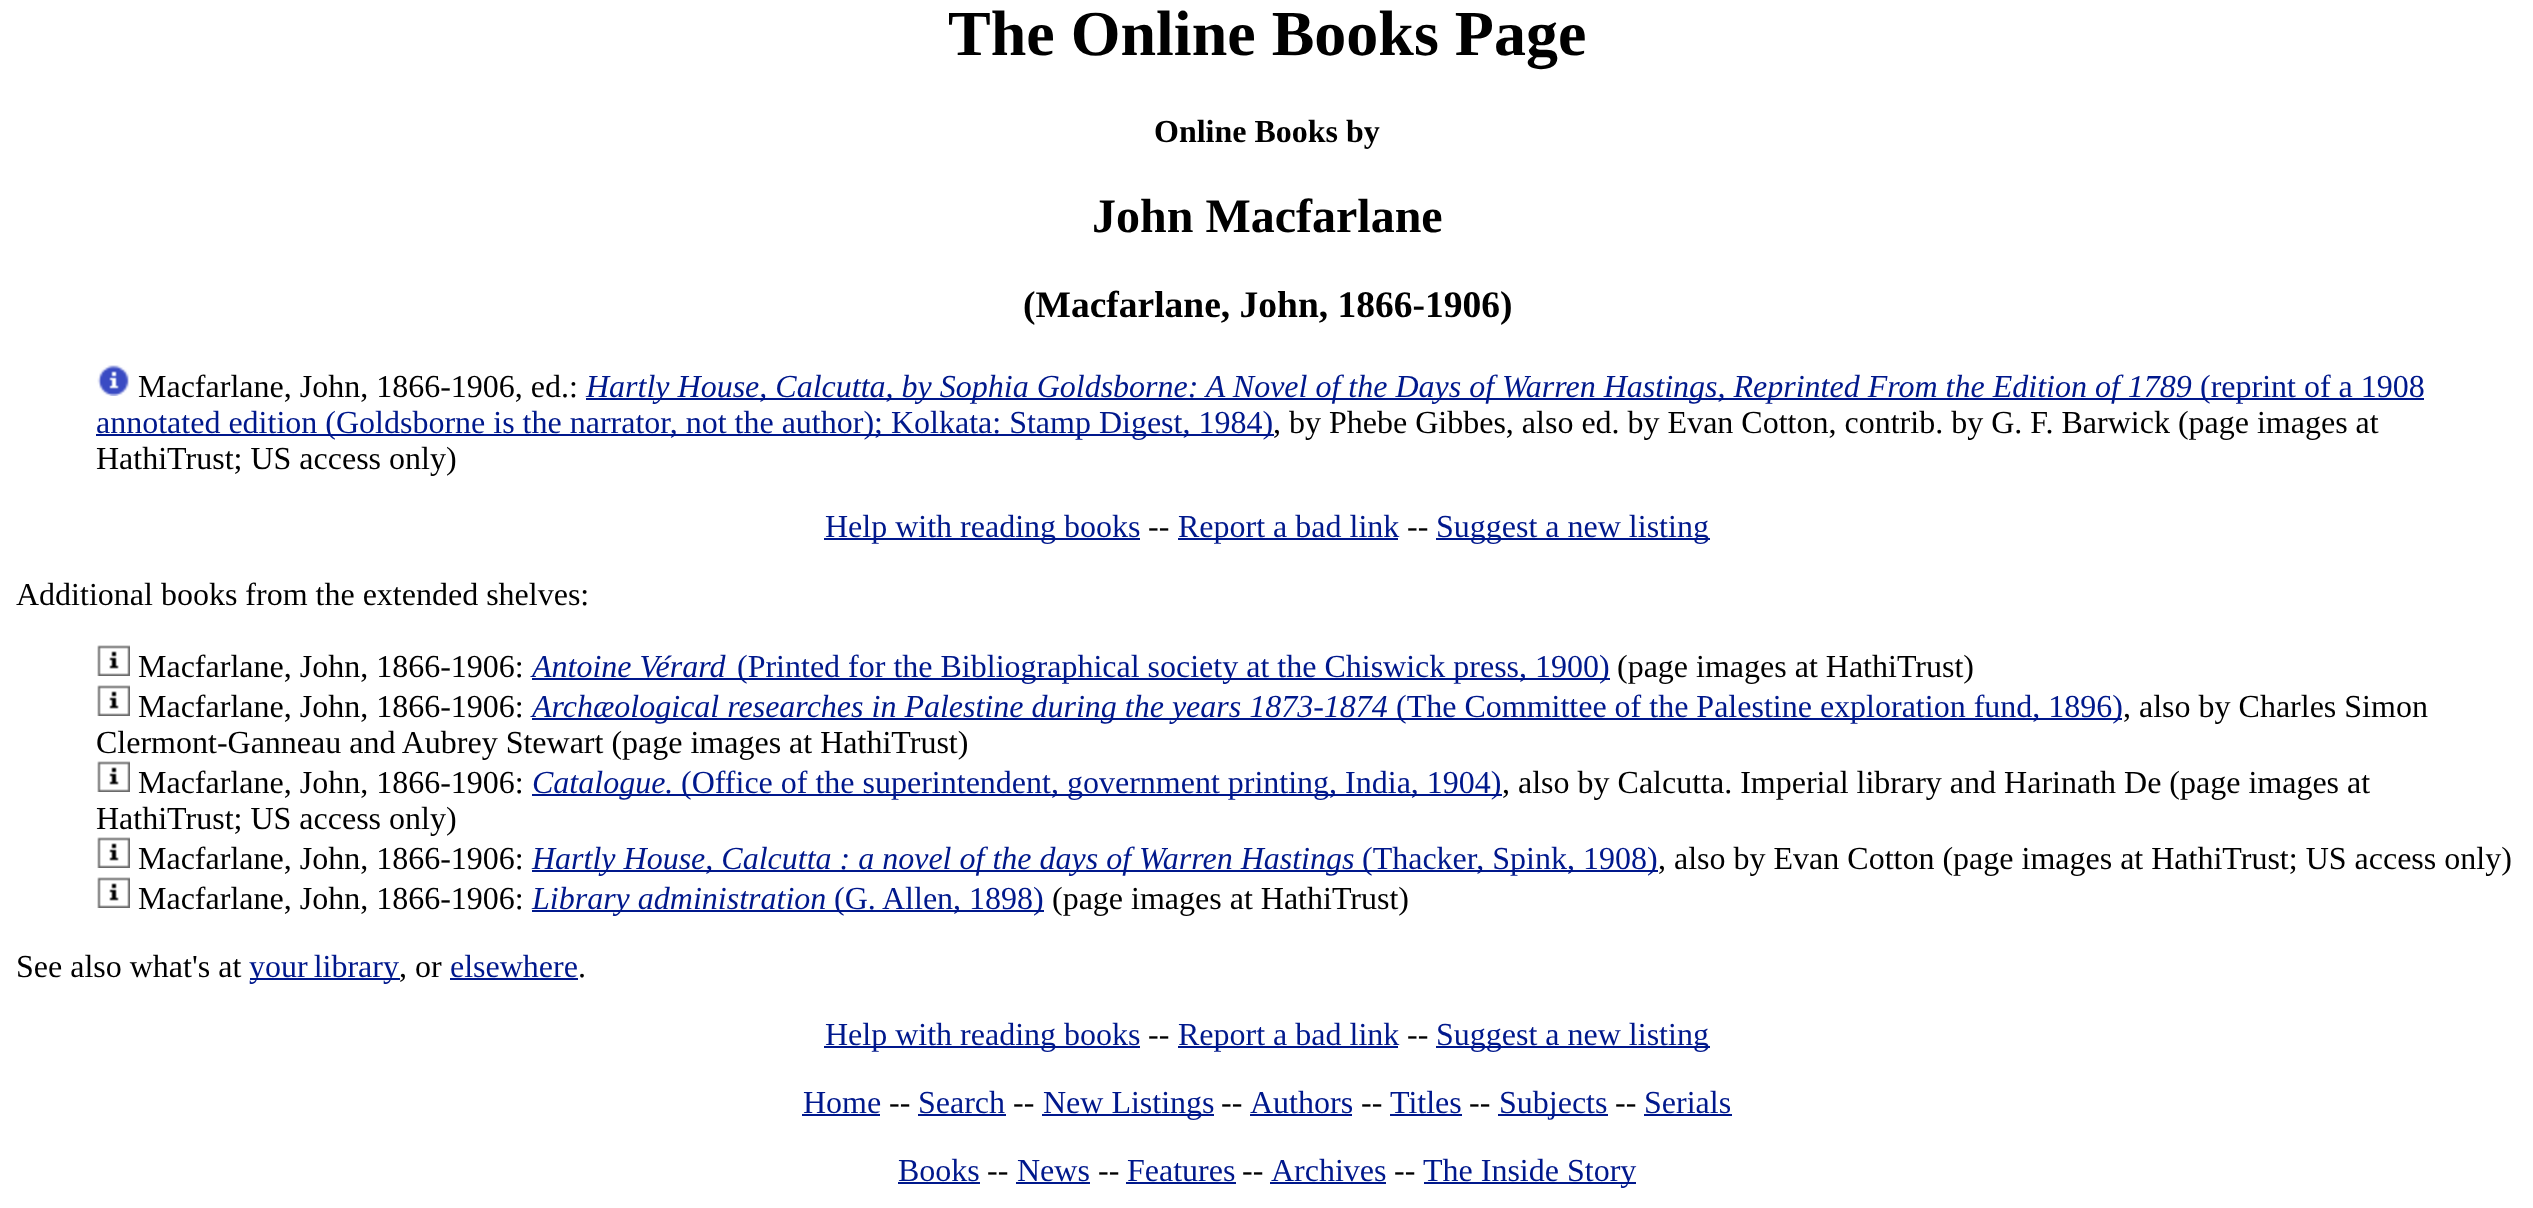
<!DOCTYPE html>
<meta charset="utf-8">
<style>body { margin: 0 } canvas { display: block }</style>
<canvas id="canvas" width="2533" height="1208"></canvas>
<img id="img1" src="images/1.png" hidden>
<img id="img2" src="images/2.png" hidden>
<script>
window.onload = function () {
    const canvas = document.getElementById('canvas');
    const context = canvas.getContext('2d');
    context.miterLimit = 4;
    context.fontKerning = 'normal';

    context.fillStyle = 'rgb(255, 255, 255)';
    context.fillRect(0, 0, 2533, 1208);
    context.drawImage(document.getElementById('img1'), 97, 365, 32, 31);
    context.fillStyle = 'rgb(0, 24, 140)';
    context.fillRect(586, 398, 1838, 2);
    context.fillRect(96, 434, 1178, 2);
    context.fillRect(824, 538, 316, 2);
    context.fillRect(1178, 538, 220, 2);
    context.fillRect(1436, 538, 274, 2);
    context.drawImage(document.getElementById('img2'), 97, 645, 33, 31);
    context.fillRect(532, 678, 1078, 2);
    context.drawImage(document.getElementById('img2'), 97, 685, 33, 31);
    context.fillRect(532, 718, 1590, 2);
    context.drawImage(document.getElementById('img2'), 97, 761, 33, 31);
    context.fillRect(532, 794, 970, 2);
    context.drawImage(document.getElementById('img2'), 97, 837, 33, 31);
    context.fillRect(532, 870, 1126, 2);
    context.drawImage(document.getElementById('img2'), 97, 877, 33, 31);
    context.fillRect(532, 910, 512, 2);
    context.fillRect(250, 978, 150, 2);
    context.fillRect(450, 978, 128, 2);
    context.fillRect(824, 1046, 316, 2);
    context.fillRect(1178, 1046, 220, 2);
    context.fillRect(1436, 1046, 274, 2);
    context.fillRect(802, 1114, 78, 2);
    context.fillRect(918, 1114, 88, 2);
    context.fillRect(1042, 1114, 172, 2);
    context.fillRect(1250, 1114, 102, 2);
    context.fillRect(1390, 1114, 72, 2);
    context.fillRect(1498, 1114, 110, 2);
    context.fillRect(1644, 1114, 88, 2);
    context.fillRect(898, 1182, 82, 2);
    context.fillRect(1016, 1182, 74, 2);
    context.fillRect(1126, 1182, 110, 2);
    context.fillRect(1270, 1182, 116, 2);
    context.fillRect(1424, 1182, 212, 2);
    context.font = 'bold 64px Liberation Serif';
    context.fillStyle = 'rgb(0, 0, 0)';
    context.fillText('The Online Books Page', 948, 55);
    context.font = 'bold 32px Liberation Serif';
    context.fillText('Online Books by', 1154, 142);
    context.font = 'bold 48px Liberation Serif';
    context.fillText('John Macfarlane', 1092, 232);
    context.font = 'bold 37.5px Liberation Serif';
    context.fillText('(Macfarlane, John, 1866-1906)', 1023, 317);
    context.font = '32px Liberation Serif';
    context.fillText('Macfarlane, John, 1866-1906, ed.:', 138, 397);
    context.font = 'italic 32px Liberation Serif';
    context.fillStyle = 'rgb(0, 24, 140)';
    context.fillText('Hartly House, Calcutta, by Sophia Goldsborne: A Novel of the Days of Warren Hastings, Reprinted From the Edition of 1789', 586, 397);
    context.font = '32px Liberation Serif';
    context.fillText('(reprint of a 1908', 2200, 397);
    context.fillText('annotated edition (Goldsborne is the narrator, not the author); Kolkata: Stamp Digest, 1984)', 96, 433);
    context.fillStyle = 'rgb(0, 0, 0)';
    context.fillText(', by Phebe Gibbes, also ed. by Evan Cotton, contrib. by G. F. Barwick (page images at', 1273, 433);
    context.fillText('HathiTrust; US access only)', 96, 469);
    context.fillStyle = 'rgb(0, 24, 140)';
    context.fillText('Help with reading books', 825, 537);
    context.fillStyle = 'rgb(0, 0, 0)';
    context.fillText('--', 1148, 537);
    context.fillStyle = 'rgb(0, 24, 140)';
    context.fillText('Report a bad link', 1178, 537);
    context.fillStyle = 'rgb(0, 0, 0)';
    context.fillText('--', 1407, 537);
    context.fillStyle = 'rgb(0, 24, 140)';
    context.fillText('Suggest a new listing', 1436, 537);
    context.fillStyle = 'rgb(0, 0, 0)';
    context.fillText('Additional books from the extended shelves:', 16, 605);
    context.fillText('Macfarlane, John, 1866-1906:', 138, 677);
    context.font = 'italic 32px Liberation Serif';
    context.fillStyle = 'rgb(0, 24, 140)';
    context.fillText('Antoine Vérard', 532, 677);
    context.font = '32px Liberation Serif';
    context.fillText('(Printed for the Bibliographical society at the Chiswick press, 1900)', 737, 677);
    context.fillStyle = 'rgb(0, 0, 0)';
    context.fillText('(page images at HathiTrust)', 1617, 677);
    context.fillText('Macfarlane, John, 1866-1906:', 138, 717);
    context.font = 'italic 32px Liberation Serif';
    context.fillStyle = 'rgb(0, 24, 140)';
    context.fillText('Archæological researches in Palestine during the years 1873-1874', 532, 717);
    context.font = '32px Liberation Serif';
    context.fillText('(The Committee of the Palestine exploration fund, 1896)', 1396, 717);
    context.fillStyle = 'rgb(0, 0, 0)';
    context.fillText(', also by Charles Simon', 2123, 717);
    context.fillText('Clermont-Ganneau and Aubrey Stewart (page images at HathiTrust)', 96, 753);
    context.fillText('Macfarlane, John, 1866-1906:', 138, 793);
    context.font = 'italic 32px Liberation Serif';
    context.fillStyle = 'rgb(0, 24, 140)';
    context.fillText('Catalogue.', 532, 793);
    context.font = '32px Liberation Serif';
    context.fillText('(Office of the superintendent, government printing, India, 1904)', 681, 793);
    context.fillStyle = 'rgb(0, 0, 0)';
    context.fillText(', also by Calcutta. Imperial library and Harinath De (page images at', 1502, 793);
    context.fillText('HathiTrust; US access only)', 96, 829);
    context.fillText('Macfarlane, John, 1866-1906:', 138, 869);
    context.font = 'italic 32px Liberation Serif';
    context.fillStyle = 'rgb(0, 24, 140)';
    context.fillText('Hartly House, Calcutta : a novel of the days of Warren Hastings', 532, 869);
    context.font = '32px Liberation Serif';
    context.fillText('(Thacker, Spink, 1908)', 1362, 869);
    context.fillStyle = 'rgb(0, 0, 0)';
    context.fillText(', also by Evan Cotton (page images at HathiTrust; US access only)', 1658, 869);
    context.fillText('Macfarlane, John, 1866-1906:', 138, 909);
    context.font = 'italic 32px Liberation Serif';
    context.fillStyle = 'rgb(0, 24, 140)';
    context.fillText('Library administration', 532, 909);
    context.font = '32px Liberation Serif';
    context.fillText('(G. Allen, 1898)', 834, 909);
    context.fillStyle = 'rgb(0, 0, 0)';
    context.fillText('(page images at HathiTrust)', 1052, 909);
    context.fillText('See also what\'s at', 16, 977);
    context.wordSpacing = '-2px';
    context.fillStyle = 'rgb(0, 24, 140)';
    context.fillText('your library', 249, 977);
    context.wordSpacing = '0px';
    context.fillStyle = 'rgb(0, 0, 0)';
    context.fillText(', or', 399, 977);
    context.fillStyle = 'rgb(0, 24, 140)';
    context.fillText('elsewhere', 450, 977);
    context.fillStyle = 'rgb(0, 0, 0)';
    context.fillText('.', 578, 977);
    context.fillStyle = 'rgb(0, 24, 140)';
    context.fillText('Help with reading books', 825, 1045);
    context.fillStyle = 'rgb(0, 0, 0)';
    context.fillText('--', 1148, 1045);
    context.fillStyle = 'rgb(0, 24, 140)';
    context.fillText('Report a bad link', 1178, 1045);
    context.fillStyle = 'rgb(0, 0, 0)';
    context.fillText('--', 1407, 1045);
    context.fillStyle = 'rgb(0, 24, 140)';
    context.fillText('Suggest a new listing', 1436, 1045);
    context.fillText('Home', 803, 1113);
    context.fillStyle = 'rgb(0, 0, 0)';
    context.fillText('--', 889, 1113);
    context.fillStyle = 'rgb(0, 24, 140)';
    context.fillText('Search', 918, 1113);
    context.fillStyle = 'rgb(0, 0, 0)';
    context.fillText('--', 1013, 1113);
    context.fillStyle = 'rgb(0, 24, 140)';
    context.fillText('New Listings', 1043, 1113);
    context.fillStyle = 'rgb(0, 0, 0)';
    context.fillText('--', 1221, 1113);
    context.fillStyle = 'rgb(0, 24, 140)';
    context.fillText('Authors', 1250, 1113);
    context.fillStyle = 'rgb(0, 0, 0)';
    context.fillText('--', 1361, 1113);
    context.fillStyle = 'rgb(0, 24, 140)';
    context.fillText('Titles', 1390, 1113);
    context.fillStyle = 'rgb(0, 0, 0)';
    context.fillText('--', 1469, 1113);
    context.fillStyle = 'rgb(0, 24, 140)';
    context.fillText('Subjects', 1499, 1113);
    context.fillStyle = 'rgb(0, 0, 0)';
    context.fillText('--', 1615, 1113);
    context.fillStyle = 'rgb(0, 24, 140)';
    context.fillText('Serials', 1644, 1113);
    context.fillText('Books', 898, 1181);
    context.fillStyle = 'rgb(0, 0, 0)';
    context.fillText('--', 987, 1181);
    context.fillStyle = 'rgb(0, 24, 140)';
    context.fillText('News', 1017, 1181);
    context.fillStyle = 'rgb(0, 0, 0)';
    context.fillText('--', 1098, 1181);
    context.fillStyle = 'rgb(0, 24, 140)';
    context.fillText('Features', 1127, 1181);
    context.fillStyle = 'rgb(0, 0, 0)';
    context.fillText('--', 1242, 1181);
    context.fillStyle = 'rgb(0, 24, 140)';
    context.fillText('Archives', 1271, 1181);
    context.fillStyle = 'rgb(0, 0, 0)';
    context.fillText('--', 1394, 1181);
    context.fillStyle = 'rgb(0, 24, 140)';
    context.fillText('The Inside Story', 1423, 1181);
};
</script>
